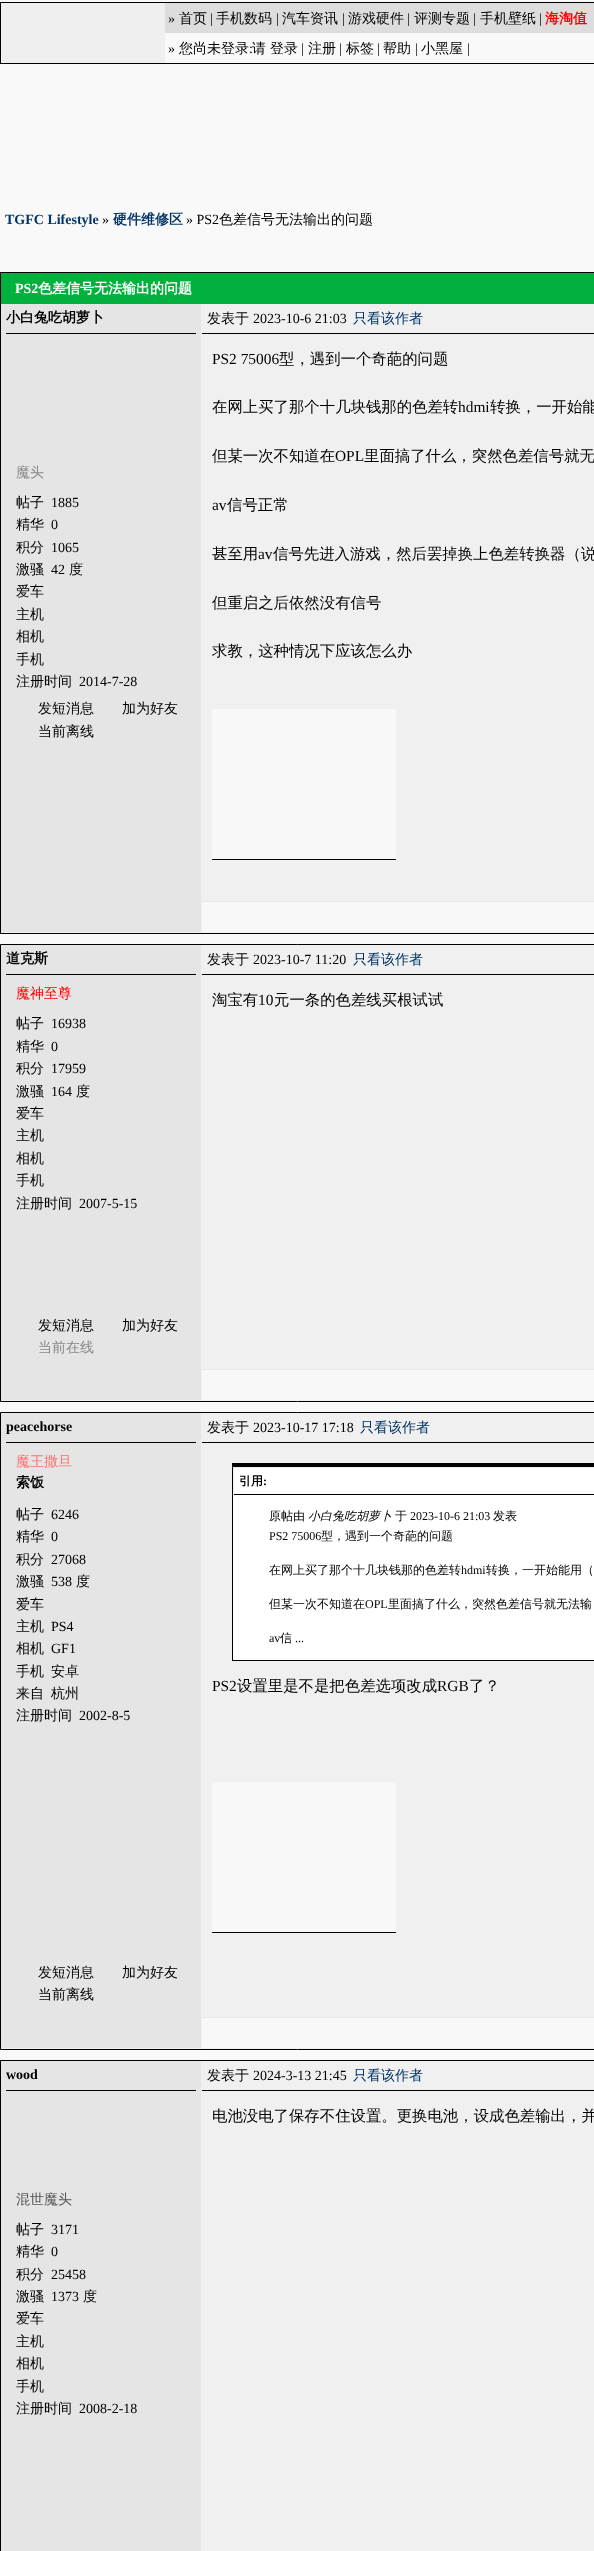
<!DOCTYPE html>
<meta charset="utf-8">
<style>body { margin: 0 } canvas { display: block }</style>
<canvas id="canvas" width="594" height="2551"></canvas>
<script>
window.onload = function () {
    const canvas = document.getElementById('canvas');
    const context = canvas.getContext('2d');
    context.miterLimit = 4;
    context.fontKerning = 'normal';

    context.fillStyle = 'rgb(249, 249, 249)';
    context.fillRect(0, 0, 594, 2551);
    context.strokeStyle = 'rgb(0, 0, 0)';
    context.strokeRect(0.5, 2.5, 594, 61);
    context.fillStyle = 'rgb(239, 239, 239)';
    context.fillRect(1, 3, 164, 60);
    context.fillStyle = 'rgb(221, 221, 221)';
    context.fillRect(165, 3, 429, 30);
    context.fillStyle = 'rgb(240, 240, 240)';
    context.fillRect(1, 304, 593, 629);
    context.strokeRect(0.5, 272.5, 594, 661);
    context.fillStyle = 'rgb(0, 178, 61)';
    context.fillRect(1, 273, 593, 31);
    context.fillStyle = 'rgb(229, 229, 229)';
    context.fillRect(1, 304, 200, 628);
    context.fillStyle = 'rgb(0, 0, 0)';
    context.fillRect(6, 333, 190, 1);
    context.fillRect(202, 333, 392, 1);
    context.fillStyle = 'rgb(248, 248, 248)';
    context.fillRect(212, 709, 184, 150);
    context.fillStyle = 'rgb(0, 0, 0)';
    context.fillRect(212, 859, 184, 1);
    context.fillStyle = 'rgb(248, 248, 248)';
    context.fillRect(202, 902, 392, 30);
    context.fillStyle = 'rgb(232, 232, 232)';
    context.fillRect(202, 901, 392, 1);
    context.fillStyle = 'rgb(240, 240, 240)';
    context.beginPath();
    context.rect(0.5, 944.5, 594, 457);
    context.fill();
    context.stroke();
    context.fillStyle = 'rgb(229, 229, 229)';
    context.fillRect(1, 945, 200, 455);
    context.fillStyle = 'rgb(0, 0, 0)';
    context.fillRect(6, 974, 190, 1);
    context.fillRect(202, 974, 392, 1);
    context.fillStyle = 'rgb(248, 248, 248)';
    context.fillRect(202, 1370, 392, 30);
    context.fillStyle = 'rgb(232, 232, 232)';
    context.fillRect(202, 1369, 392, 1);
    context.fillStyle = 'rgb(240, 240, 240)';
    context.beginPath();
    context.rect(0.5, 1412.5, 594, 637);
    context.fill();
    context.stroke();
    context.fillStyle = 'rgb(229, 229, 229)';
    context.fillRect(1, 1413, 200, 635);
    context.fillStyle = 'rgb(0, 0, 0)';
    context.fillRect(6, 1442, 190, 1);
    context.fillRect(202, 1442, 392, 1);
    context.fillStyle = 'rgb(255, 255, 255)';
    context.fillRect(233, 1468, 361, 192);
    context.fillStyle = 'rgb(0, 0, 0)';
    context.fillRect(232, 1463, 362, 4);
    context.fillRect(232, 1660, 362, 1);
    context.fillRect(232, 1463, 1, 198);
    context.fillRect(233, 1494, 361, 1);
    context.fillStyle = 'rgb(240, 240, 240)';
    context.fillRect(233, 1467, 1, 28);
    context.fillStyle = 'rgb(248, 248, 248)';
    context.fillRect(212, 1782, 184, 150);
    context.fillStyle = 'rgb(0, 0, 0)';
    context.fillRect(212, 1932, 184, 1);
    context.fillStyle = 'rgb(248, 248, 248)';
    context.fillRect(202, 2018, 392, 30);
    context.fillStyle = 'rgb(232, 232, 232)';
    context.fillRect(202, 2017, 392, 1);
    context.fillStyle = 'rgb(240, 240, 240)';
    context.fillRect(201, 2061, 393, 490);
    context.strokeRect(0.5, 2060.5, 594, 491);
    context.fillStyle = 'rgb(229, 229, 229)';
    context.fillRect(1, 2061, 200, 490);
    context.fillStyle = 'rgb(0, 0, 0)';
    context.fillRect(6, 2090, 190, 1);
    context.fillRect(202, 2090, 392, 1);
    context.font = '14px Liberation Serif';
    context.fillText('»', 168, 23);
    context.font = '500 14px WenQuanYi Zen Hei';
    context.fillText('首页', 179, 23);
    context.font = '14px Liberation Serif';
    context.fillText('|', 210, 23);
    context.font = '500 14px WenQuanYi Zen Hei';
    context.fillText('手机数码', 216, 23);
    context.font = '14px Liberation Serif';
    context.fillText('|', 276, 23);
    context.font = '500 14px WenQuanYi Zen Hei';
    context.fillText('汽车资讯', 282, 23);
    context.font = '14px Liberation Serif';
    context.fillText('|', 342, 23);
    context.font = '500 14px WenQuanYi Zen Hei';
    context.fillText('游戏硬件', 348, 23);
    context.font = '14px Liberation Serif';
    context.fillText('|', 407, 23);
    context.font = '500 14px WenQuanYi Zen Hei';
    context.fillText('评测专题', 414, 23);
    context.font = '14px Liberation Serif';
    context.fillText('|', 473, 23);
    context.font = '500 14px WenQuanYi Zen Hei';
    context.fillText('手机壁纸', 480, 23);
    context.font = '14px Liberation Serif';
    context.fillText('|', 539, 23);
    context.font = 'bold 14px WenQuanYi Zen Hei';
    context.fillStyle = 'rgb(255, 0, 0)';
    context.fillText('海淘值', 545, 23);
    context.font = '14px Liberation Serif';
    context.fillStyle = 'rgb(0, 0, 0)';
    context.fillText('»', 168, 53);
    context.font = '500 14px WenQuanYi Zen Hei';
    context.fillText('您尚未登录', 179, 53);
    context.font = '14px Liberation Serif';
    context.fillText(':', 249, 53);
    context.font = '500 14px WenQuanYi Zen Hei';
    context.fillText('请', 252, 53);
    context.fillText('登录', 270, 53);
    context.font = '14px Liberation Serif';
    context.fillText('|', 301, 53);
    context.font = '500 14px WenQuanYi Zen Hei';
    context.fillText('注册', 308, 53);
    context.font = '14px Liberation Serif';
    context.fillText('|', 339, 53);
    context.font = '500 14px WenQuanYi Zen Hei';
    context.fillText('标签', 346, 53);
    context.font = '14px Liberation Serif';
    context.fillText('|', 377, 53);
    context.font = '500 14px WenQuanYi Zen Hei';
    context.fillText('帮助', 383, 53);
    context.font = '14px Liberation Serif';
    context.fillText('|', 415, 53);
    context.font = '500 14px WenQuanYi Zen Hei';
    context.fillText('小黑屋', 421, 53);
    context.font = '14px Liberation Serif';
    context.fillText('|', 467, 53);
    context.font = 'bold 14px Liberation Serif';
    context.fillStyle = 'rgb(0, 51, 102)';
    context.fillText('TGFC Lifestyle', 5, 224);
    context.font = '14px Liberation Serif';
    context.fillStyle = 'rgb(0, 0, 0)';
    context.fillText('»', 102, 224);
    context.font = 'bold 14px WenQuanYi Zen Hei';
    context.fillStyle = 'rgb(0, 51, 102)';
    context.fillText('硬件维修区', 113, 224);
    context.font = '14px Liberation Serif';
    context.fillStyle = 'rgb(0, 0, 0)';
    context.fillText('» PS2', 186, 224);
    context.font = '500 14px WenQuanYi Zen Hei';
    context.fillText('色差信号无法输出的问题', 219, 224);
    context.font = 'bold 14px Liberation Serif';
    context.fillStyle = 'rgb(255, 255, 255)';
    context.fillText('PS2', 15, 293);
    context.font = 'bold 14px WenQuanYi Zen Hei';
    context.fillText('色差信号无法输出的问题', 38, 293);
    context.fillStyle = 'rgb(0, 0, 0)';
    context.fillText('小白兔吃胡萝卜', 6, 322);
    context.font = '500 14px WenQuanYi Zen Hei';
    context.fillStyle = 'rgb(136, 136, 136)';
    context.fillText('魔头', 16, 477);
    context.fillStyle = 'rgb(0, 0, 0)';
    context.fillText('帖子', 16, 507);
    context.font = '14px Liberation Serif';
    context.fillText('1885', 51, 507);
    context.font = '500 14px WenQuanYi Zen Hei';
    context.fillText('精华', 16, 529);
    context.font = '14px Liberation Serif';
    context.fillText('0', 51, 529);
    context.font = '500 14px WenQuanYi Zen Hei';
    context.fillText('积分', 16, 552);
    context.font = '14px Liberation Serif';
    context.fillText('1065', 51, 552);
    context.font = '500 14px WenQuanYi Zen Hei';
    context.fillText('激骚', 16, 574);
    context.font = '14px Liberation Serif';
    context.fillText('42', 51, 574);
    context.font = '500 14px WenQuanYi Zen Hei';
    context.fillText('度', 69, 574);
    context.fillText('爱车', 16, 596);
    context.fillText('主机', 16, 619);
    context.fillText('相机', 16, 641);
    context.fillText('手机', 16, 664);
    context.fillText('注册时间', 16, 686);
    context.font = '14px Liberation Serif';
    context.fillText('2014-7-28', 79, 686);
    context.font = '500 14px WenQuanYi Zen Hei';
    context.fillText('发短消息', 38, 713);
    context.fillText('加为好友', 122, 713);
    context.fillText('当前离线', 38, 736);
    context.fillText('发表于', 207, 323);
    context.font = '14px Liberation Serif';
    context.fillText('2023-10-6 21:03', 253, 323);
    context.font = '500 14px WenQuanYi Zen Hei';
    context.fillStyle = 'rgb(0, 51, 102)';
    context.fillText('只看该作者', 353, 323);
    context.font = '15.4px Liberation Serif';
    context.fillStyle = 'rgb(0, 0, 0)';
    context.fillText('PS2 75006', 212, 364);
    context.font = '500 15.4px WenQuanYi Zen Hei';
    context.fillText('型，遇到一个奇葩的问题', 279, 364);
    context.fillText('在网上买了那个十几块钱那的色差转', 212, 412);
    context.font = '15.4px Liberation Serif';
    context.fillText('hdmi', 458, 412);
    context.font = '500 15.4px WenQuanYi Zen Hei';
    context.fillText('转换，一开始能', 490, 412);
    context.fillText('但某一次不知道在', 212, 461);
    context.font = '15.4px Liberation Serif';
    context.fillText('OPL', 335, 461);
    context.font = '500 15.4px WenQuanYi Zen Hei';
    context.fillText('里面搞了什么，突然色差信号就无', 364, 461);
    context.font = '15.4px Liberation Serif';
    context.fillText('av', 212, 510);
    context.font = '500 15.4px WenQuanYi Zen Hei';
    context.fillText('信号正常', 227, 510);
    context.fillText('甚至用', 212, 559);
    context.font = '15.4px Liberation Serif';
    context.fillText('av', 258, 559);
    context.font = '500 15.4px WenQuanYi Zen Hei';
    context.fillText('信号先进入游戏，然后罢掉换上色差转换器（说', 273, 559);
    context.fillText('但重启之后依然没有信号', 212, 608);
    context.fillText('求教，这种情况下应该怎么办', 212, 656);
    context.font = 'bold 14px WenQuanYi Zen Hei';
    context.fillText('道克斯', 6, 963);
    context.font = '500 14px WenQuanYi Zen Hei';
    context.fillStyle = 'rgb(255, 0, 0)';
    context.fillText('魔神至尊', 16, 998);
    context.fillStyle = 'rgb(0, 0, 0)';
    context.fillText('帖子', 16, 1028);
    context.font = '14px Liberation Serif';
    context.fillText('16938', 51, 1028);
    context.font = '500 14px WenQuanYi Zen Hei';
    context.fillText('精华', 16, 1051);
    context.font = '14px Liberation Serif';
    context.fillText('0', 51, 1051);
    context.font = '500 14px WenQuanYi Zen Hei';
    context.fillText('积分', 16, 1073);
    context.font = '14px Liberation Serif';
    context.fillText('17959', 51, 1073);
    context.font = '500 14px WenQuanYi Zen Hei';
    context.fillText('激骚', 16, 1096);
    context.font = '14px Liberation Serif';
    context.fillText('164', 51, 1096);
    context.font = '500 14px WenQuanYi Zen Hei';
    context.fillText('度', 76, 1096);
    context.fillText('爱车', 16, 1118);
    context.fillText('主机', 16, 1140);
    context.fillText('相机', 16, 1163);
    context.fillText('手机', 16, 1185);
    context.fillText('注册时间', 16, 1208);
    context.font = '14px Liberation Serif';
    context.fillText('2007-5-15', 79, 1208);
    context.font = '500 14px WenQuanYi Zen Hei';
    context.fillText('发短消息', 38, 1330);
    context.fillText('加为好友', 122, 1330);
    context.fillStyle = 'rgb(136, 136, 136)';
    context.fillText('当前在线', 38, 1352);
    context.fillStyle = 'rgb(0, 0, 0)';
    context.fillText('发表于', 207, 964);
    context.font = '14px Liberation Serif';
    context.fillText('2023-10-7 11:20', 253, 964);
    context.font = '500 14px WenQuanYi Zen Hei';
    context.fillStyle = 'rgb(0, 51, 102)';
    context.fillText('只看该作者', 353, 964);
    context.font = '500 15.4px WenQuanYi Zen Hei';
    context.fillStyle = 'rgb(0, 0, 0)';
    context.fillText('淘宝有', 212, 1005);
    context.font = '15.4px Liberation Serif';
    context.fillText('10', 258, 1005);
    context.font = '500 15.4px WenQuanYi Zen Hei';
    context.fillText('元一条的色差线买根试试', 274, 1005);
    context.font = 'bold 14px Liberation Serif';
    context.fillText('peacehorse', 6, 1431);
    context.font = '500 14px WenQuanYi Zen Hei';
    context.fillStyle = 'rgb(255, 112, 112)';
    context.fillText('魔王撒旦', 16, 1466);
    context.font = 'bold 14px WenQuanYi Zen Hei';
    context.fillStyle = 'rgb(0, 0, 0)';
    context.fillText('索饭', 16, 1487);
    context.font = '500 14px WenQuanYi Zen Hei';
    context.fillText('帖子', 16, 1519);
    context.font = '14px Liberation Serif';
    context.fillText('6246', 51, 1519);
    context.font = '500 14px WenQuanYi Zen Hei';
    context.fillText('精华', 16, 1541);
    context.font = '14px Liberation Serif';
    context.fillText('0', 51, 1541);
    context.font = '500 14px WenQuanYi Zen Hei';
    context.fillText('积分', 16, 1564);
    context.font = '14px Liberation Serif';
    context.fillText('27068', 51, 1564);
    context.font = '500 14px WenQuanYi Zen Hei';
    context.fillText('激骚', 16, 1586);
    context.font = '14px Liberation Serif';
    context.fillText('538', 51, 1586);
    context.font = '500 14px WenQuanYi Zen Hei';
    context.fillText('度', 76, 1586);
    context.fillText('爱车', 16, 1609);
    context.fillText('主机', 16, 1631);
    context.font = '14px Liberation Serif';
    context.fillText('PS4', 51, 1631);
    context.font = '500 14px WenQuanYi Zen Hei';
    context.fillText('相机', 16, 1653);
    context.font = '14px Liberation Serif';
    context.fillText('GF1', 51, 1653);
    context.font = '500 14px WenQuanYi Zen Hei';
    context.fillText('手机', 16, 1676);
    context.fillText('安卓', 51, 1676);
    context.fillText('来自', 16, 1698);
    context.fillText('杭州', 51, 1698);
    context.fillText('注册时间', 16, 1720);
    context.font = '14px Liberation Serif';
    context.fillText('2002-8-5', 79, 1720);
    context.font = '500 14px WenQuanYi Zen Hei';
    context.fillText('发短消息', 38, 1977);
    context.fillText('加为好友', 122, 1977);
    context.fillText('当前离线', 38, 1999);
    context.fillText('发表于', 207, 1432);
    context.font = '14px Liberation Serif';
    context.fillText('2023-10-17 17:18', 253, 1432);
    context.font = '500 14px WenQuanYi Zen Hei';
    context.fillStyle = 'rgb(0, 51, 102)';
    context.fillText('只看该作者', 360, 1432);
    context.font = 'bold 12px WenQuanYi Zen Hei';
    context.fillStyle = 'rgb(0, 0, 0)';
    context.fillText('引用', 239, 1485);
    context.font = 'bold 12px Liberation Serif';
    context.fillText(':', 263, 1485);
    context.font = '500 12px WenQuanYi Zen Hei';
    context.fillText('原帖由', 269, 1520);
    context.font = 'italic 500 12px WenQuanYi Zen Hei';
    context.fillText('小白兔吃胡萝卜', 308, 1520);
    context.font = '500 12px WenQuanYi Zen Hei';
    context.fillText('于', 395, 1520);
    context.font = '12px Liberation Serif';
    context.fillText('2023-10-6 21:03', 410, 1520);
    context.font = '500 12px WenQuanYi Zen Hei';
    context.fillText('发表', 493, 1520);
    context.font = '12px Liberation Serif';
    context.fillText('PS2 75006', 269, 1540);
    context.font = '500 12px WenQuanYi Zen Hei';
    context.fillText('型，遇到一个奇葩的问题', 321, 1540);
    context.fillText('在网上买了那个十几块钱那的色差转', 269, 1574);
    context.font = '12px Liberation Serif';
    context.fillText('hdmi', 461, 1574);
    context.font = '500 12px WenQuanYi Zen Hei';
    context.fillText('转换，一开始能用（', 486, 1574);
    context.fillText('但某一次不知道在', 269, 1608);
    context.font = '12px Liberation Serif';
    context.fillText('OPL', 365, 1608);
    context.font = '500 12px WenQuanYi Zen Hei';
    context.fillText('里面搞了什么，突然色差信号就无法输', 388, 1608);
    context.font = '12px Liberation Serif';
    context.fillText('av', 269, 1642);
    context.font = '500 12px WenQuanYi Zen Hei';
    context.fillText('信', 280, 1642);
    context.font = '12px Liberation Serif';
    context.fillText('...', 295, 1642);
    context.font = '15.4px Liberation Serif';
    context.fillText('PS2', 212, 1691);
    context.font = '500 15.4px WenQuanYi Zen Hei';
    context.fillText('设置里是不是把色差选项改成', 237, 1691);
    context.font = '15.4px Liberation Serif';
    context.fillText('RGB', 437, 1691);
    context.font = '500 15.4px WenQuanYi Zen Hei';
    context.fillText('了？', 469, 1691);
    context.font = 'bold 14px Liberation Serif';
    context.fillText('wood', 6, 2079);
    context.font = '500 14px WenQuanYi Zen Hei';
    context.fillStyle = 'rgb(85, 85, 85)';
    context.fillText('混世魔头', 16, 2204);
    context.fillStyle = 'rgb(0, 0, 0)';
    context.fillText('帖子', 16, 2234);
    context.font = '14px Liberation Serif';
    context.fillText('3171', 51, 2234);
    context.font = '500 14px WenQuanYi Zen Hei';
    context.fillText('精华', 16, 2256);
    context.font = '14px Liberation Serif';
    context.fillText('0', 51, 2256);
    context.font = '500 14px WenQuanYi Zen Hei';
    context.fillText('积分', 16, 2279);
    context.font = '14px Liberation Serif';
    context.fillText('25458', 51, 2279);
    context.font = '500 14px WenQuanYi Zen Hei';
    context.fillText('激骚', 16, 2301);
    context.font = '14px Liberation Serif';
    context.fillText('1373', 51, 2301);
    context.font = '500 14px WenQuanYi Zen Hei';
    context.fillText('度', 83, 2301);
    context.fillText('爱车', 16, 2323);
    context.fillText('主机', 16, 2346);
    context.fillText('相机', 16, 2368);
    context.fillText('手机', 16, 2391);
    context.fillText('注册时间', 16, 2413);
    context.font = '14px Liberation Serif';
    context.fillText('2008-2-18', 79, 2413);
    context.font = '500 14px WenQuanYi Zen Hei';
    context.fillText('发表于', 207, 2080);
    context.font = '14px Liberation Serif';
    context.fillText('2024-3-13 21:45', 253, 2080);
    context.font = '500 14px WenQuanYi Zen Hei';
    context.fillStyle = 'rgb(0, 51, 102)';
    context.fillText('只看该作者', 353, 2080);
    context.font = '500 15.4px WenQuanYi Zen Hei';
    context.fillStyle = 'rgb(0, 0, 0)';
    context.fillText('电池没电了保存不住设置。更换电池，设成色差输出，并', 212, 2121);
};
</script>
